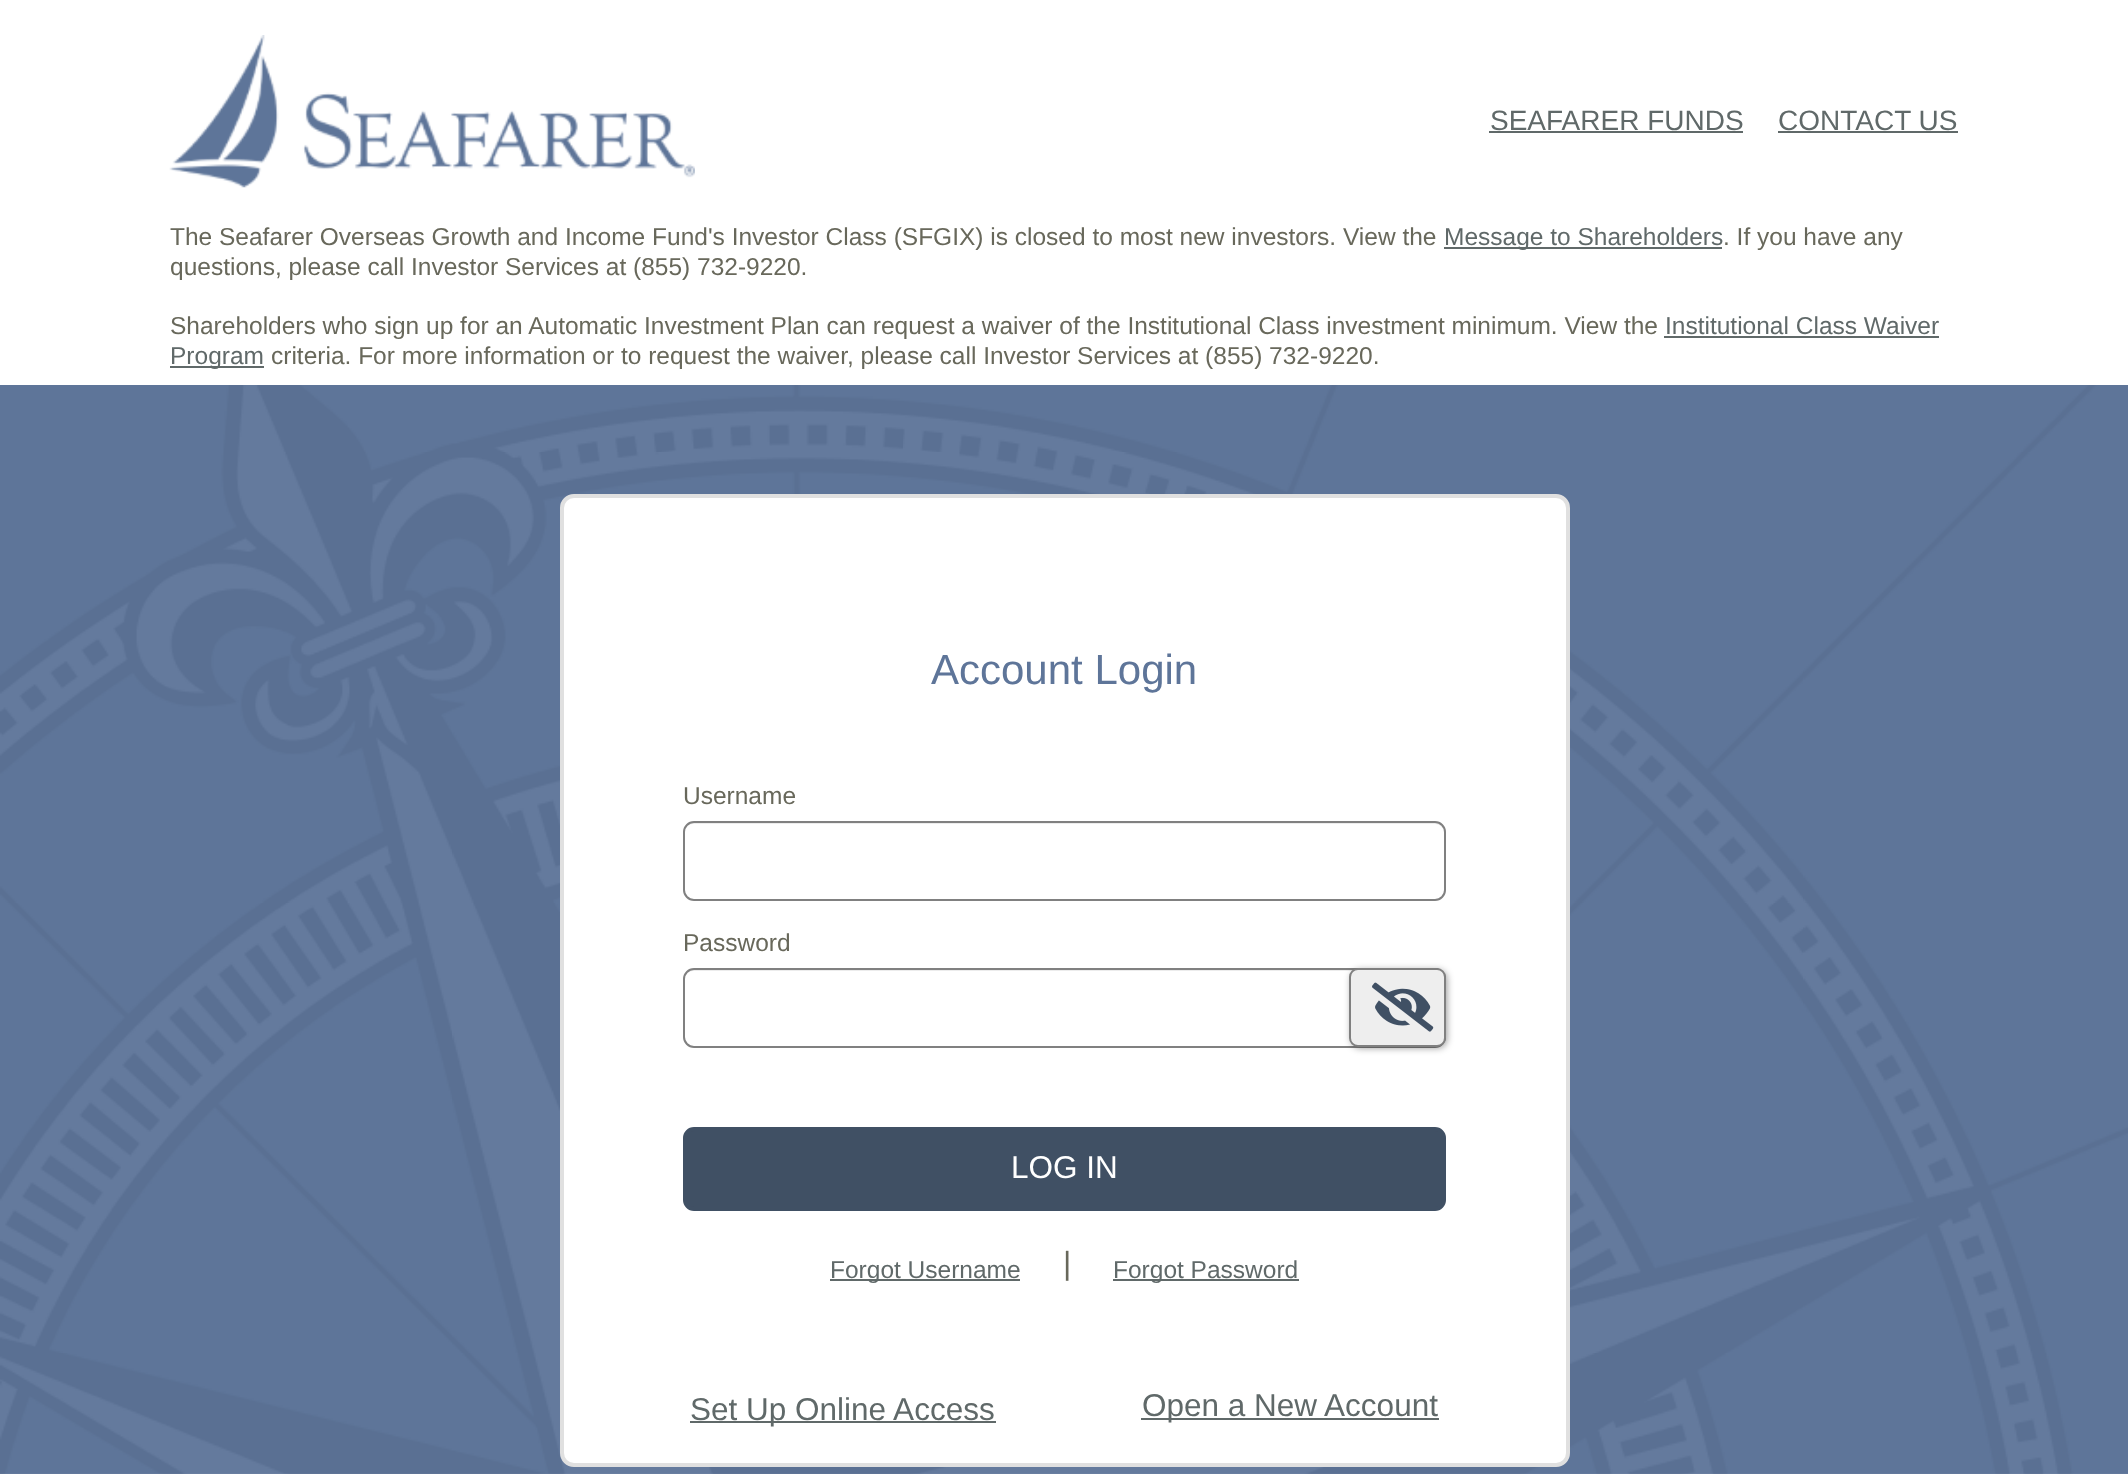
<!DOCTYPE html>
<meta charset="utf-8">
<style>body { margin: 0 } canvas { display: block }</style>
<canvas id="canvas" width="2128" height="1474"></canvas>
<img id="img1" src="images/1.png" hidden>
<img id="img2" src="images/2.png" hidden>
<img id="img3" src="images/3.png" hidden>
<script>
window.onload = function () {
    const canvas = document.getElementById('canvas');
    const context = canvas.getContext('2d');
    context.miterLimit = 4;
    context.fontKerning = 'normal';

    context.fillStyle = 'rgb(255, 255, 255)';
    context.fillRect(0, 0, 2128, 1474);
    context.drawImage(document.getElementById('img1'), 0, 385, 2128, 1089);
    context.drawImage(document.getElementById('img2'), 169, 35, 526, 153);
    context.fillStyle = 'rgb(96, 105, 105)';
    context.fillRect(1489, 131, 254, 2);
    context.fillRect(1778, 131, 180, 2);
    context.fillRect(1444, 247, 278, 2);
    context.fillRect(1664, 336, 275, 2);
    context.fillRect(170, 366, 94, 2);
    context.fillStyle = 'rgb(255, 255, 255)';
    context.beginPath();
    context.roundRect(562, 496, 1006, 969, 12);
    context.fill();
    context.strokeStyle = 'rgb(224, 224, 224)';
    context.lineWidth = 4;
    context.stroke();
    context.fillStyle = 'rgb(236, 236, 236)';
    context.beginPath();
    context.moveTo(693, 824);
    context.lineTo(1435, 824);
    context.bezierCurveTo(1440, 824, 1444, 828, 1444, 833);
    context.lineTo(1444, 832);
    context.bezierCurveTo(1444, 827, 1440, 823, 1435, 823);
    context.lineTo(693, 823);
    context.bezierCurveTo(688, 823, 684, 827, 684, 832);
    context.lineTo(684, 833);
    context.bezierCurveTo(684, 828, 688, 824, 693, 824);
    context.closePath();
    context.fill();
    context.beginPath();
    context.roundRect(684, 822, 761, 78, 10);
    context.strokeStyle = 'rgb(128, 128, 128)';
    context.lineWidth = 2;
    context.stroke();
    context.beginPath();
    context.moveTo(693, 971);
    context.lineTo(1435, 971);
    context.bezierCurveTo(1440, 971, 1444, 975, 1444, 980);
    context.lineTo(1444, 979);
    context.bezierCurveTo(1444, 974, 1440, 970, 1435, 970);
    context.lineTo(693, 970);
    context.bezierCurveTo(688, 970, 684, 974, 684, 979);
    context.lineTo(684, 980);
    context.bezierCurveTo(684, 975, 688, 971, 693, 971);
    context.closePath();
    context.fill();
    context.beginPath();
    context.roundRect(684, 969, 761, 78, 10);
    context.stroke();
    context.fillStyle = 'rgba(0, 0, 0, 0.4)';
    context.filter = 'blur(3.5px)';
    context.beginPath();
    context.roundRect(1351, 970, 96, 78, 9);
    context.fill();
    context.filter = 'none';
    context.fillStyle = 'rgb(238, 238, 238)';
    context.beginPath();
    context.roundRect(1350, 969, 95, 77, 8);
    context.fill();
    context.stroke();
    context.drawImage(document.getElementById('img3'), 1372, 982, 62, 50);
    context.fillStyle = 'rgb(64, 80, 100)';
    context.beginPath();
    context.roundRect(685, 1129, 759, 80, 9);
    context.fill();
    context.strokeStyle = 'rgb(64, 80, 100)';
    context.lineWidth = 4;
    context.stroke();
    context.fillStyle = 'rgb(96, 105, 105)';
    context.fillRect(830, 1279, 190, 2);
    context.fillRect(1113, 1279, 186, 2);
    context.fillRect(690, 1421, 306, 2);
    context.fillRect(1141, 1418, 298, 2);
    context.font = '28px Liberation Sans';
    context.fillText('SEAFARER FUNDS', 1490, 130);
    context.fillText('CONTACT US', 1778, 130);
    context.font = '24.5px Liberation Sans';
    context.fillStyle = 'rgb(104, 104, 91)';
    context.fillText('The Seafarer Overseas Growth and Income Fund\'s Investor Class (SFGIX) is closed to most new investors. View the', 170, 245);
    context.fillStyle = 'rgb(96, 105, 105)';
    context.fillText('Message to Shareholders', 1444, 245);
    context.fillStyle = 'rgb(104, 104, 91)';
    context.fillText('. If you have any', 1723, 245);
    context.fillText('questions, please call Investor Services at (855) 732-9220.', 170, 275);
    context.fillText('Shareholders who sign up for an Automatic Investment Plan can request a waiver of the Institutional Class investment minimum. View the', 170, 334);
    context.fillStyle = 'rgb(96, 105, 105)';
    context.fillText('Institutional Class Waiver', 1665, 334);
    context.fillText('Program', 170, 364);
    context.fillStyle = 'rgb(104, 104, 91)';
    context.fillText('criteria. For more information or to request the waiver, please call Investor Services at (855) 732-9220.', 271, 364);
    context.font = '42px Liberation Sans';
    context.fillStyle = 'rgb(94, 117, 153)';
    context.fillText('Account Login', 931, 684);
    context.font = '24.5px Liberation Sans';
    context.fillStyle = 'rgb(104, 104, 91)';
    context.fillText('Username', 683, 804);
    context.fillText('Password', 683, 951);
    context.font = '31.5px Liberation Sans';
    context.fillStyle = 'rgb(255, 255, 255)';
    context.fillText('LOG IN', 1011, 1178);
    context.font = '24.5px Liberation Sans';
    context.fillStyle = 'rgb(96, 105, 105)';
    context.fillText('Forgot Username', 830, 1278);
    context.font = '32px Liberation Sans';
    context.fillStyle = 'rgb(104, 104, 91)';
    context.fillText('|', 1063, 1274);
    context.font = '24.5px Liberation Sans';
    context.fillStyle = 'rgb(96, 105, 105)';
    context.fillText('Forgot Password', 1113, 1278);
    context.font = '31.5px Liberation Sans';
    context.fillText('Set Up Online Access', 690, 1420);
    context.fillText('Open a New Account', 1142, 1416);
};
</script>
